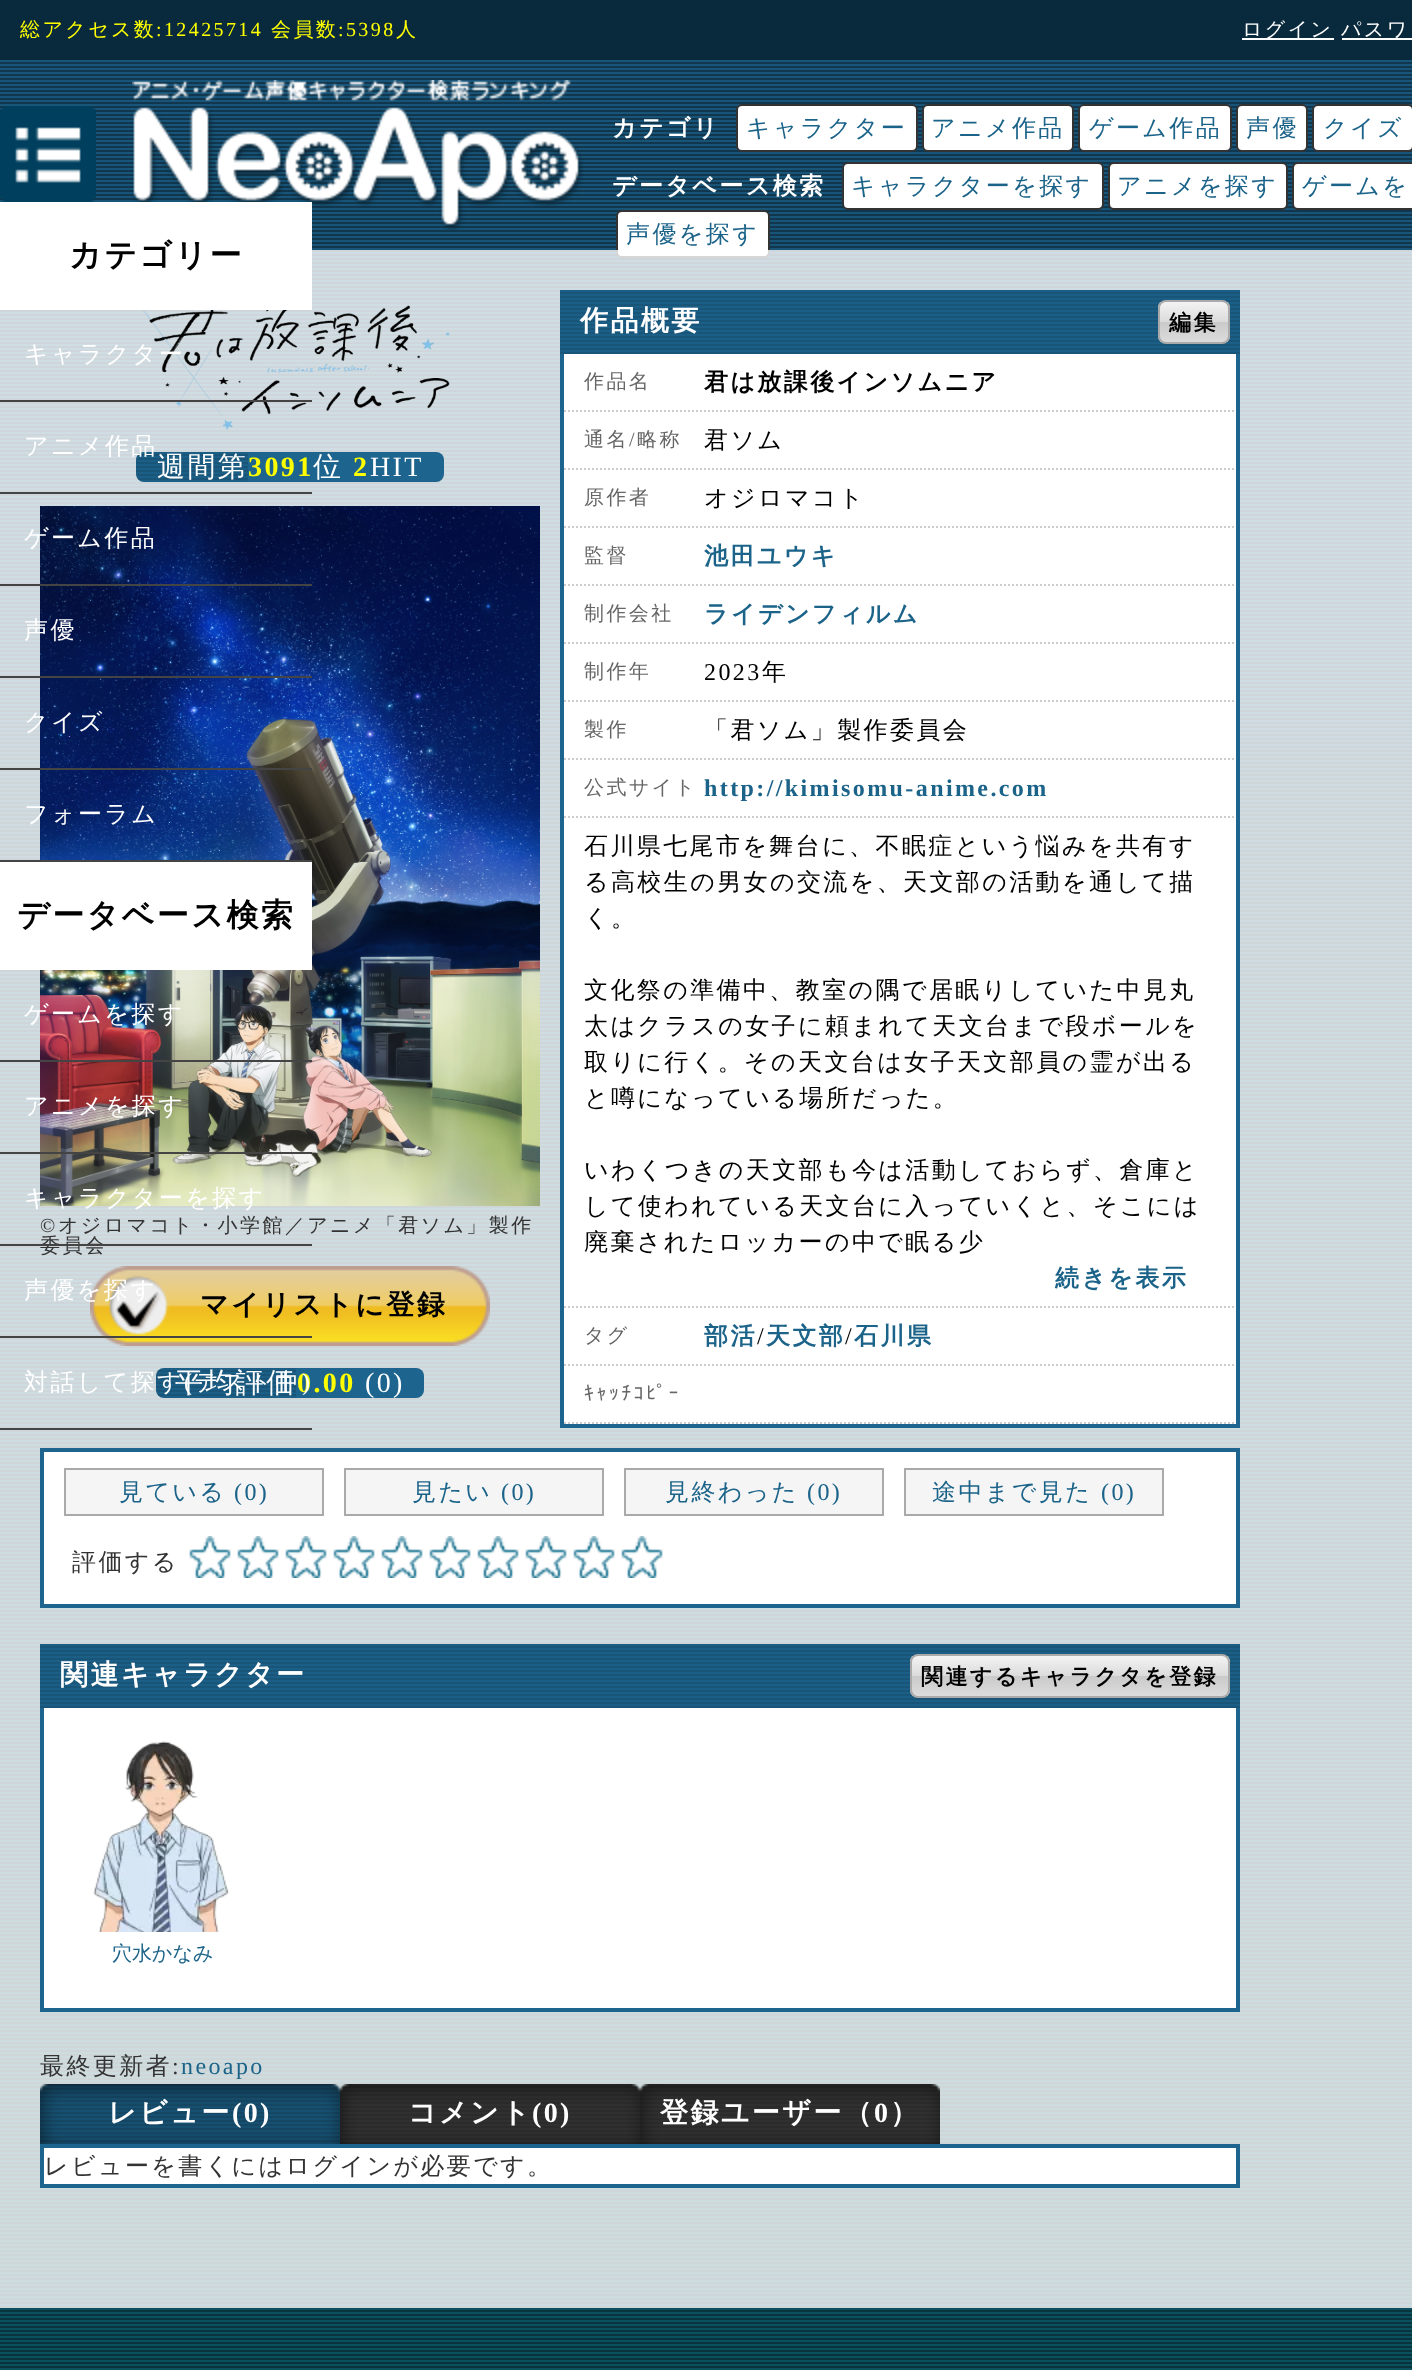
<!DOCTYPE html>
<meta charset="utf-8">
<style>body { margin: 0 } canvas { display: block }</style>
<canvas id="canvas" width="1412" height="2370"></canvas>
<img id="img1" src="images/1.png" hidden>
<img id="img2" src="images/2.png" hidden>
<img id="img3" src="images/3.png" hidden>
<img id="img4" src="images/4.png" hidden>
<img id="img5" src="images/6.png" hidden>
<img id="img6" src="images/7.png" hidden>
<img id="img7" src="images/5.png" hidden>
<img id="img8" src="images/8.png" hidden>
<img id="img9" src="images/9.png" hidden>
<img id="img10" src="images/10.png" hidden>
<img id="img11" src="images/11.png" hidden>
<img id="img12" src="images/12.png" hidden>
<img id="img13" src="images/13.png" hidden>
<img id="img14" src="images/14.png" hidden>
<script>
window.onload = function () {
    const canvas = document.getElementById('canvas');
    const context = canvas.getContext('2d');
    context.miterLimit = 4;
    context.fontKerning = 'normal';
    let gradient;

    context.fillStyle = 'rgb(255, 255, 255)';
    context.fillRect(0, 0, 1412, 2370);
    gradient = context.createLinearGradient(706, 0, 706, 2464);
    gradient.addColorStop(0, 'rgb(30, 100, 144)');
    gradient.addColorStop(1, 'rgb(13, 94, 109)');
    context.fillStyle = gradient;
    context.fillRect(0, 60, 1412, 2310);
    context.fillStyle = 'rgb(9, 42, 61)';
    context.fillRect(0, 0, 1412, 60);
    context.fillStyle = 'rgb(255, 255, 255)';
    context.fillRect(1242, 38, 92, 2);
    context.fillRect(1342, 38, 70, 2);
    context.drawImage(document.getElementById('img1'), 0, 60, 1412, 2310);
    context.drawImage(document.getElementById('img2'), 132, 80, 452, 150);
    context.beginPath();
    context.roundRect(737, 105, 180, 46, 5);
    context.fill();
    context.strokeStyle = 'rgb(51, 51, 51)';
    context.lineWidth = 2;
    context.stroke();
    context.beginPath();
    context.roundRect(923, 105, 150, 46, 5);
    context.fill();
    context.stroke();
    context.beginPath();
    context.roundRect(1079, 105, 152, 46, 5);
    context.fill();
    context.stroke();
    context.beginPath();
    context.roundRect(1237, 105, 70, 46, 5);
    context.fill();
    context.stroke();
    context.beginPath();
    context.roundRect(1313, 105, 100, 46, 5);
    context.fill();
    context.stroke();
    context.beginPath();
    context.roundRect(843, 163, 260, 46, 5);
    context.fill();
    context.stroke();
    context.beginPath();
    context.roundRect(1109, 163, 178, 46, 5);
    context.fill();
    context.stroke();
    context.beginPath();
    context.roundRect(1293, 163, 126, 46, 5);
    context.fill();
    context.stroke();
    context.beginPath();
    context.roundRect(617, 211, 152, 46, 5);
    context.fill();
    context.stroke();
    context.fillStyle = 'rgba(255, 255, 255, 0.8)';
    context.fillRect(0, 250, 1412, 2058);
    context.drawImage(document.getElementById('img3'), 0, 106, 96, 96);
    context.drawImage(document.getElementById('img4'), 142, 305, 308, 125);
    context.fillStyle = 'rgb(255, 255, 255)';
    context.fillRect(0, 202, 312, 108);
    context.fillStyle = 'rgb(68, 68, 68)';
    context.fillRect(0, 400, 312, 2);
    context.fillRect(0, 492, 312, 2);
    context.drawImage(document.getElementById('img5'), 40, 506, 500, 700);
    context.fillRect(0, 584, 312, 2);
    context.fillRect(0, 676, 312, 2);
    context.fillRect(0, 768, 312, 2);
    context.fillRect(0, 860, 312, 2);
    context.fillStyle = 'rgb(255, 255, 255)';
    context.fillRect(0, 862, 312, 108);
    context.fillStyle = 'rgb(68, 68, 68)';
    context.fillRect(0, 1060, 312, 2);
    context.fillRect(0, 1152, 312, 2);
    context.drawImage(document.getElementById('img6'), 90, 1266, 400, 80);
    context.fillRect(0, 1336, 312, 2);
    context.fillRect(0, 1428, 312, 2);
    context.fillStyle = 'rgb(29, 100, 142)';
    context.beginPath();
    context.roundRect(136, 452, 112, 30, [8, 0, 0, 8]);
    context.fill();
    context.drawImage(document.getElementById('img7'), 136, 452, 308, 30);
    context.fillRect(248, 452, 122, 30);
    context.beginPath();
    context.roundRect(370, 452, 74, 30, [0, 8, 8, 0]);
    context.fill();
    context.beginPath();
    context.roundRect(156, 1368, 140, 30, [8, 0, 0, 8]);
    context.fill();
    context.drawImage(document.getElementById('img8'), 156, 1368, 268, 30);
    context.fillRect(296, 1368, 60, 30);
    context.beginPath();
    context.roundRect(356, 1368, 68, 30, [0, 8, 8, 0]);
    context.fill();
    context.fillRect(560, 290, 680, 64);
    context.drawImage(document.getElementById('img9'), 560, 290, 680, 64);
    context.save();
    context.beginPath();
    context.roundRect(1158, 300, 72, 44, 8);
    context.clip();
    gradient = context.createLinearGradient(1194, 302, 1194, 342);
    gradient.addColorStop(0, 'rgb(243, 243, 243)');
    gradient.addColorStop(0.5, 'rgb(219, 219, 219)');
    gradient.addColorStop(0.51, 'rgb(202, 202, 202)');
    gradient.addColorStop(1, 'rgb(220, 220, 220)');
    context.fillStyle = gradient;
    context.fillRect(1158, 302, 72, 40);
    context.restore();
    context.beginPath();
    context.roundRect(1159, 301, 70, 42, 7);
    context.strokeStyle = 'rgb(170, 170, 170)';
    context.stroke();
    context.fillStyle = 'rgb(255, 255, 255)';
    context.fillRect(564, 354, 672, 1070);
    context.fillStyle = 'rgb(29, 100, 142)';
    context.fillRect(1236, 354, 4, 1074);
    context.fillRect(560, 354, 4, 1012);
    context.beginPath();
    context.moveTo(564, 411);
    context.lineTo(1236, 411);
    context.strokeStyle = 'rgb(204, 204, 204)';
    context.setLineDash([2, 2]);
    context.stroke();
    context.beginPath();
    context.moveTo(564, 469);
    context.lineTo(1236, 469);
    context.stroke();
    context.beginPath();
    context.moveTo(564, 527);
    context.lineTo(1236, 527);
    context.stroke();
    context.beginPath();
    context.moveTo(564, 585);
    context.lineTo(1236, 585);
    context.stroke();
    context.beginPath();
    context.moveTo(564, 643);
    context.lineTo(1236, 643);
    context.stroke();
    context.beginPath();
    context.moveTo(564, 701);
    context.lineTo(1236, 701);
    context.stroke();
    context.beginPath();
    context.moveTo(564, 759);
    context.lineTo(1236, 759);
    context.stroke();
    context.beginPath();
    context.moveTo(564, 817);
    context.lineTo(1236, 817);
    context.stroke();
    context.beginPath();
    context.moveTo(564, 1307);
    context.lineTo(1236, 1307);
    context.stroke();
    context.beginPath();
    context.moveTo(564, 1365);
    context.lineTo(1236, 1365);
    context.stroke();
    context.fillRect(560, 1424, 680, 4);
    context.fillRect(560, 1366, 4, 62);
    context.beginPath();
    context.moveTo(564, 1423);
    context.lineTo(1236, 1423);
    context.stroke();
    context.fillStyle = 'rgb(255, 255, 255)';
    context.beginPath();
    context.rect(42, 1450, 1196, 156);
    context.fill();
    context.strokeStyle = 'rgb(29, 100, 142)';
    context.lineWidth = 4;
    context.setLineDash([]);
    context.stroke();
    context.fillStyle = 'rgb(245, 245, 245)';
    context.beginPath();
    context.rect(65, 1469, 258, 46);
    context.fill();
    context.strokeStyle = 'rgb(170, 170, 170)';
    context.lineWidth = 2;
    context.stroke();
    context.beginPath();
    context.rect(345, 1469, 258, 46);
    context.fill();
    context.stroke();
    context.beginPath();
    context.rect(625, 1469, 258, 46);
    context.fill();
    context.stroke();
    context.beginPath();
    context.rect(905, 1469, 258, 46);
    context.fill();
    context.stroke();
    context.drawImage(document.getElementById('img10'), 189, 1536, 42, 42);
    context.drawImage(document.getElementById('img10'), 237, 1536, 42, 42);
    context.drawImage(document.getElementById('img10'), 285, 1536, 42, 42);
    context.drawImage(document.getElementById('img10'), 333, 1536, 42, 42);
    context.drawImage(document.getElementById('img10'), 381, 1536, 42, 42);
    context.drawImage(document.getElementById('img10'), 429, 1536, 42, 42);
    context.drawImage(document.getElementById('img10'), 477, 1536, 42, 42);
    context.drawImage(document.getElementById('img10'), 525, 1536, 42, 42);
    context.drawImage(document.getElementById('img10'), 573, 1536, 42, 42);
    context.drawImage(document.getElementById('img10'), 621, 1536, 42, 42);
    context.fillStyle = 'rgb(29, 100, 142)';
    context.fillRect(40, 1644, 1200, 64);
    context.drawImage(document.getElementById('img11'), 40, 1644, 1200, 64);
    context.save();
    context.beginPath();
    context.roundRect(910, 1654, 320, 44, 8);
    context.clip();
    gradient = context.createLinearGradient(1070, 1656, 1070, 1696);
    gradient.addColorStop(0, 'rgb(243, 243, 243)');
    gradient.addColorStop(0.5, 'rgb(219, 219, 219)');
    gradient.addColorStop(0.51, 'rgb(202, 202, 202)');
    gradient.addColorStop(1, 'rgb(220, 220, 220)');
    context.fillStyle = gradient;
    context.fillRect(910, 1656, 320, 40);
    context.restore();
    context.beginPath();
    context.roundRect(911, 1655, 318, 42, 7);
    context.stroke();
    context.fillStyle = 'rgb(255, 255, 255)';
    context.fillRect(44, 1708, 1192, 300);
    context.fillStyle = 'rgb(29, 100, 142)';
    context.fillRect(1236, 1708, 4, 304);
    context.fillRect(40, 2008, 1200, 4);
    context.fillRect(40, 1708, 4, 304);
    context.drawImage(document.getElementById('img12'), 93, 1741, 136, 191);
    context.drawImage(document.getElementById('img13'), 40, 2084, 300, 60);
    context.drawImage(document.getElementById('img14'), 340, 2084, 300, 60);
    context.drawImage(document.getElementById('img14'), 640, 2084, 300, 60);
    context.fillStyle = 'rgb(255, 255, 255)';
    context.beginPath();
    context.rect(42, 2146, 1196, 40);
    context.fill();
    context.strokeStyle = 'rgb(29, 100, 142)';
    context.lineWidth = 4;
    context.stroke();
    context.letterSpacing = '2.4px';
    context.font = '500 20px WenQuanYi Zen Hei';
    context.fillStyle = 'rgb(255, 255, 0)';
    context.fillText('総アクセス数', 20, 36);
    context.font = '20px Liberation Serif';
    context.fillText(':12425714', 156, 36);
    context.font = '500 20px WenQuanYi Zen Hei';
    context.fillText('会員数', 271, 36);
    context.font = '20px Liberation Serif';
    context.fillText(':5398', 338, 36);
    context.font = '500 20px WenQuanYi Zen Hei';
    context.fillText('人', 396, 36);
    context.fillStyle = 'rgb(255, 255, 255)';
    context.fillText('ログイン', 1242, 36);
    context.fillText('パスワ', 1341, 36);
    context.font = 'bold 24px WenQuanYi Zen Hei';
    context.fillText('カテゴリ', 612, 136);
    context.font = '500 24px WenQuanYi Zen Hei';
    context.fillStyle = 'rgb(27, 99, 137)';
    context.fillText('キャラクター', 746, 136);
    context.fillText('アニメ作品', 931, 136);
    context.fillText('ゲーム作品', 1089, 136);
    context.fillText('声優', 1246, 136);
    context.fillText('クイズ', 1323, 136);
    context.font = 'bold 24px WenQuanYi Zen Hei';
    context.fillStyle = 'rgb(255, 255, 255)';
    context.fillText('データベース検索', 612, 194);
    context.font = '500 24px WenQuanYi Zen Hei';
    context.fillStyle = 'rgb(27, 99, 137)';
    context.fillText('キャラクターを探す', 851, 194);
    context.fillText('アニメを探す', 1117, 194);
    context.fillText('ゲームを', 1302, 194);
    context.fillText('声優を探す', 626, 242);
    context.font = 'bold 32px WenQuanYi Zen Hei';
    context.fillStyle = 'rgb(0, 0, 0)';
    context.fillText('カテゴリー', 69, 266);
    context.font = '500 24px WenQuanYi Zen Hei';
    context.fillStyle = 'rgb(255, 255, 255)';
    context.fillText('キャラクター', 24, 362);
    context.fillText('アニメ作品', 24, 454);
    context.fillText('ゲーム作品', 24, 546);
    context.fillText('声優', 24, 638);
    context.fillText('クイズ', 24, 730);
    context.fillText('フォーラム', 24, 822);
    context.font = 'bold 32px WenQuanYi Zen Hei';
    context.fillStyle = 'rgb(0, 0, 0)';
    context.fillText('データベース検索', 17, 926);
    context.font = '500 24px WenQuanYi Zen Hei';
    context.fillStyle = 'rgb(255, 255, 255)';
    context.fillText('ゲームを探す', 24, 1022);
    context.fillText('アニメを探す', 24, 1114);
    context.fillText('キャラクターを探す', 24, 1206);
    context.fillText('声優を探す', 24, 1298);
    context.font = '500 28px WenQuanYi Zen Hei';
    context.fillText('週間第', 157, 476);
    context.font = 'bold 28px Liberation Serif';
    context.fillStyle = 'rgb(255, 255, 0)';
    context.fillText('3091', 248, 476);
    context.font = '500 28px WenQuanYi Zen Hei';
    context.fillStyle = 'rgb(255, 255, 255)';
    context.fillText('位', 313, 476);
    context.font = 'bold 28px Liberation Serif';
    context.fillStyle = 'rgb(255, 255, 0)';
    context.fillText('2', 353, 476);
    context.font = '28px Liberation Serif';
    context.fillStyle = 'rgb(255, 255, 255)';
    context.fillText('HIT', 370, 476);
    context.font = '20px Liberation Serif';
    context.fillStyle = 'rgb(51, 51, 51)';
    context.fillText('©', 40, 1232);
    context.font = '500 20px WenQuanYi Zen Hei';
    context.fillText('オジロマコト・小学館／アニメ「君ソム」製作', 58, 1232);
    context.fillText('委員会', 40, 1252);
    context.fillStyle = 'rgb(68, 68, 68)';
    context.fillRect(0, 1244, 312, 2);
    context.font = 'bold 28px WenQuanYi Zen Hei';
    context.fillStyle = 'rgb(0, 0, 0)';
    context.fillText('マイリストに登録', 200, 1314);
    context.font = '500 28px WenQuanYi Zen Hei';
    context.fillStyle = 'rgb(255, 255, 255)';
    context.fillText('平均評価', 175, 1392);
    context.font = '500 24px WenQuanYi Zen Hei';
    context.fillText('テスト中', 194, 1390);
    context.font = '24px Liberation Serif';
    context.fillText('(', 184, 1390);
    context.font = '500 24px WenQuanYi Zen Hei';
    context.fillText('対話して探す', 24, 1390);
    context.font = 'bold 28px Liberation Serif';
    context.fillStyle = 'rgb(255, 255, 0)';
    context.fillText('0.00', 297, 1392);
    context.font = '24px Liberation Serif';
    context.fillStyle = 'rgb(255, 255, 255)';
    context.fillText(')', 302, 1390);
    context.font = '28px Liberation Serif';
    context.fillText('(0)', 365, 1392);
    context.font = 'bold 28px WenQuanYi Zen Hei';
    context.fillText('作品概要', 580, 330);
    context.font = 'bold 22px WenQuanYi Zen Hei';
    context.fillStyle = 'rgb(0, 0, 0)';
    context.fillText('編集', 1169, 330);
    context.font = '500 20px WenQuanYi Zen Hei';
    context.fillStyle = 'rgb(102, 102, 102)';
    context.fillText('作品名', 584, 388);
    context.font = 'bold 24px WenQuanYi Zen Hei';
    context.fillStyle = 'rgb(0, 0, 0)';
    context.fillText('君は放課後インソムニア', 704, 390);
    context.font = '500 20px WenQuanYi Zen Hei';
    context.fillStyle = 'rgb(102, 102, 102)';
    context.fillText('通名', 584, 446);
    context.font = '20px Liberation Serif';
    context.fillText('/', 629, 446);
    context.font = '500 20px WenQuanYi Zen Hei';
    context.fillText('略称', 637, 446);
    context.font = '500 24px WenQuanYi Zen Hei';
    context.fillStyle = 'rgb(0, 0, 0)';
    context.fillText('君ソム', 704, 448);
    context.font = '500 20px WenQuanYi Zen Hei';
    context.fillStyle = 'rgb(102, 102, 102)';
    context.fillText('原作者', 584, 504);
    context.font = '500 24px WenQuanYi Zen Hei';
    context.fillStyle = 'rgb(0, 0, 0)';
    context.fillText('オジロマコト', 704, 506);
    context.font = '500 20px WenQuanYi Zen Hei';
    context.fillStyle = 'rgb(102, 102, 102)';
    context.fillText('監督', 584, 562);
    context.font = 'bold 24px WenQuanYi Zen Hei';
    context.fillStyle = 'rgb(27, 99, 137)';
    context.fillText('池田ユウキ', 704, 564);
    context.font = '500 20px WenQuanYi Zen Hei';
    context.fillStyle = 'rgb(102, 102, 102)';
    context.fillText('制作会社', 584, 620);
    context.font = 'bold 24px WenQuanYi Zen Hei';
    context.fillStyle = 'rgb(27, 99, 137)';
    context.fillText('ライデンフィルム', 704, 622);
    context.font = '500 20px WenQuanYi Zen Hei';
    context.fillStyle = 'rgb(102, 102, 102)';
    context.fillText('制作年', 584, 678);
    context.font = '24px Liberation Serif';
    context.fillStyle = 'rgb(0, 0, 0)';
    context.fillText('2023', 704, 680);
    context.font = '500 24px WenQuanYi Zen Hei';
    context.fillText('年', 762, 680);
    context.font = '500 20px WenQuanYi Zen Hei';
    context.fillStyle = 'rgb(102, 102, 102)';
    context.fillText('製作', 584, 736);
    context.font = '500 24px WenQuanYi Zen Hei';
    context.fillStyle = 'rgb(0, 0, 0)';
    context.fillText('「君ソム」製作委員会', 704, 738);
    context.font = '500 20px WenQuanYi Zen Hei';
    context.fillStyle = 'rgb(102, 102, 102)';
    context.fillText('公式サイト', 584, 794);
    context.font = 'bold 24px Liberation Serif';
    context.fillStyle = 'rgb(27, 99, 137)';
    context.fillText('http://kimisomu-anime.com', 704, 796);
    context.font = '500 24px WenQuanYi Zen Hei';
    context.fillStyle = 'rgb(0, 0, 0)';
    context.fillText('石川県七尾市を舞台に、不眠症という悩みを共有す', 584, 854);
    context.fillText('る高校生の男女の交流を、天文部の活動を通して描', 584, 890);
    context.fillText('く。', 584, 926);
    context.fillText('文化祭の準備中、教室の隅で居眠りしていた中見丸', 584, 998);
    context.fillText('太はクラスの女子に頼まれて天文台まで段ボールを', 584, 1034);
    context.fillText('取りに行く。その天文台は女子天文部員の霊が出る', 584, 1070);
    context.fillText('と噂になっている場所だった。', 584, 1106);
    context.fillText('いわくつきの天文部も今は活動しておらず、倉庫と', 584, 1178);
    context.fillText('して使われている天文台に入っていくと、そこには', 584, 1214);
    context.fillText('廃棄されたロッカーの中で眠る少', 584, 1250);
    context.font = 'bold 24px WenQuanYi Zen Hei';
    context.fillStyle = 'rgb(27, 99, 137)';
    context.fillText('続きを表示', 1055, 1286);
    context.font = '500 20px WenQuanYi Zen Hei';
    context.fillStyle = 'rgb(102, 102, 102)';
    context.fillText('タグ', 584, 1342);
    context.font = 'bold 24px WenQuanYi Zen Hei';
    context.fillStyle = 'rgb(27, 99, 137)';
    context.fillText('部活', 704, 1344);
    context.font = '24px Liberation Serif';
    context.fillStyle = 'rgb(0, 0, 0)';
    context.fillText('/', 757, 1344);
    context.font = 'bold 24px WenQuanYi Zen Hei';
    context.fillStyle = 'rgb(27, 99, 137)';
    context.fillText('天文部', 766, 1344);
    context.font = '24px Liberation Serif';
    context.fillStyle = 'rgb(0, 0, 0)';
    context.fillText('/', 845, 1344);
    context.font = 'bold 24px WenQuanYi Zen Hei';
    context.fillStyle = 'rgb(27, 99, 137)';
    context.fillText('石川県', 854, 1344);
    context.font = '20px IPAPGothic';
    context.fillStyle = 'rgb(102, 102, 102)';
    context.fillText('ｷｬｯﾁｺﾋﾟｰ', 584, 1400);
    context.font = '500 24px WenQuanYi Zen Hei';
    context.fillStyle = 'rgb(27, 99, 137)';
    context.fillText('見ている', 119, 1500);
    context.font = '24px Liberation Serif';
    context.fillText('(0)', 234, 1500);
    context.font = '500 24px WenQuanYi Zen Hei';
    context.fillText('見たい', 412, 1500);
    context.font = '24px Liberation Serif';
    context.fillText('(0)', 501, 1500);
    context.font = '500 24px WenQuanYi Zen Hei';
    context.fillText('見終わった', 665, 1500);
    context.font = '24px Liberation Serif';
    context.fillText('(0)', 807, 1500);
    context.font = '500 24px WenQuanYi Zen Hei';
    context.fillText('途中まで見た', 932, 1500);
    context.font = '24px Liberation Serif';
    context.fillText('(0)', 1101, 1500);
    context.font = '500 24px WenQuanYi Zen Hei';
    context.fillStyle = 'rgb(51, 51, 51)';
    context.fillText('評価する', 72, 1570);
    context.font = 'bold 28px WenQuanYi Zen Hei';
    context.fillStyle = 'rgb(255, 255, 255)';
    context.fillText('関連キャラクター', 60, 1684);
    context.font = 'bold 22px WenQuanYi Zen Hei';
    context.fillStyle = 'rgb(0, 0, 0)';
    context.fillText('関連するキャラクタを登録', 921, 1684);
    context.letterSpacing = '0px';
    context.font = '500 20px WenQuanYi Zen Hei';
    context.fillStyle = 'rgb(27, 99, 137)';
    context.fillText('穴水かなみ', 112, 1960);
    context.letterSpacing = '2.4px';
    context.font = '500 24px WenQuanYi Zen Hei';
    context.fillStyle = 'rgb(51, 51, 51)';
    context.fillText('最終更新者', 40, 2074);
    context.font = '24px Liberation Serif';
    context.fillText(':', 172, 2074);
    context.fillStyle = 'rgb(27, 99, 137)';
    context.fillText('neoapo', 181, 2074);
    context.font = 'bold 28px WenQuanYi Zen Hei';
    context.fillStyle = 'rgb(255, 255, 255)';
    context.fillText('レビュー', 108, 2122);
    context.font = 'bold 28px Liberation Serif';
    context.fillText('(0)', 232, 2122);
    context.font = 'bold 28px WenQuanYi Zen Hei';
    context.fillText('コメント', 408, 2122);
    context.font = 'bold 28px Liberation Serif';
    context.fillText('(0)', 532, 2122);
    context.font = 'bold 28px WenQuanYi Zen Hei';
    context.fillText('登録ユーザー（', 660, 2122);
    context.font = 'bold 28px Liberation Serif';
    context.fillText('0', 874, 2122);
    context.font = 'bold 28px WenQuanYi Zen Hei';
    context.fillText('）', 890, 2122);
    context.font = '500 24px WenQuanYi Zen Hei';
    context.fillStyle = 'rgb(51, 51, 51)';
    context.fillText('レビューを書くにはログインが必要です。', 44, 2174);
};
</script>
